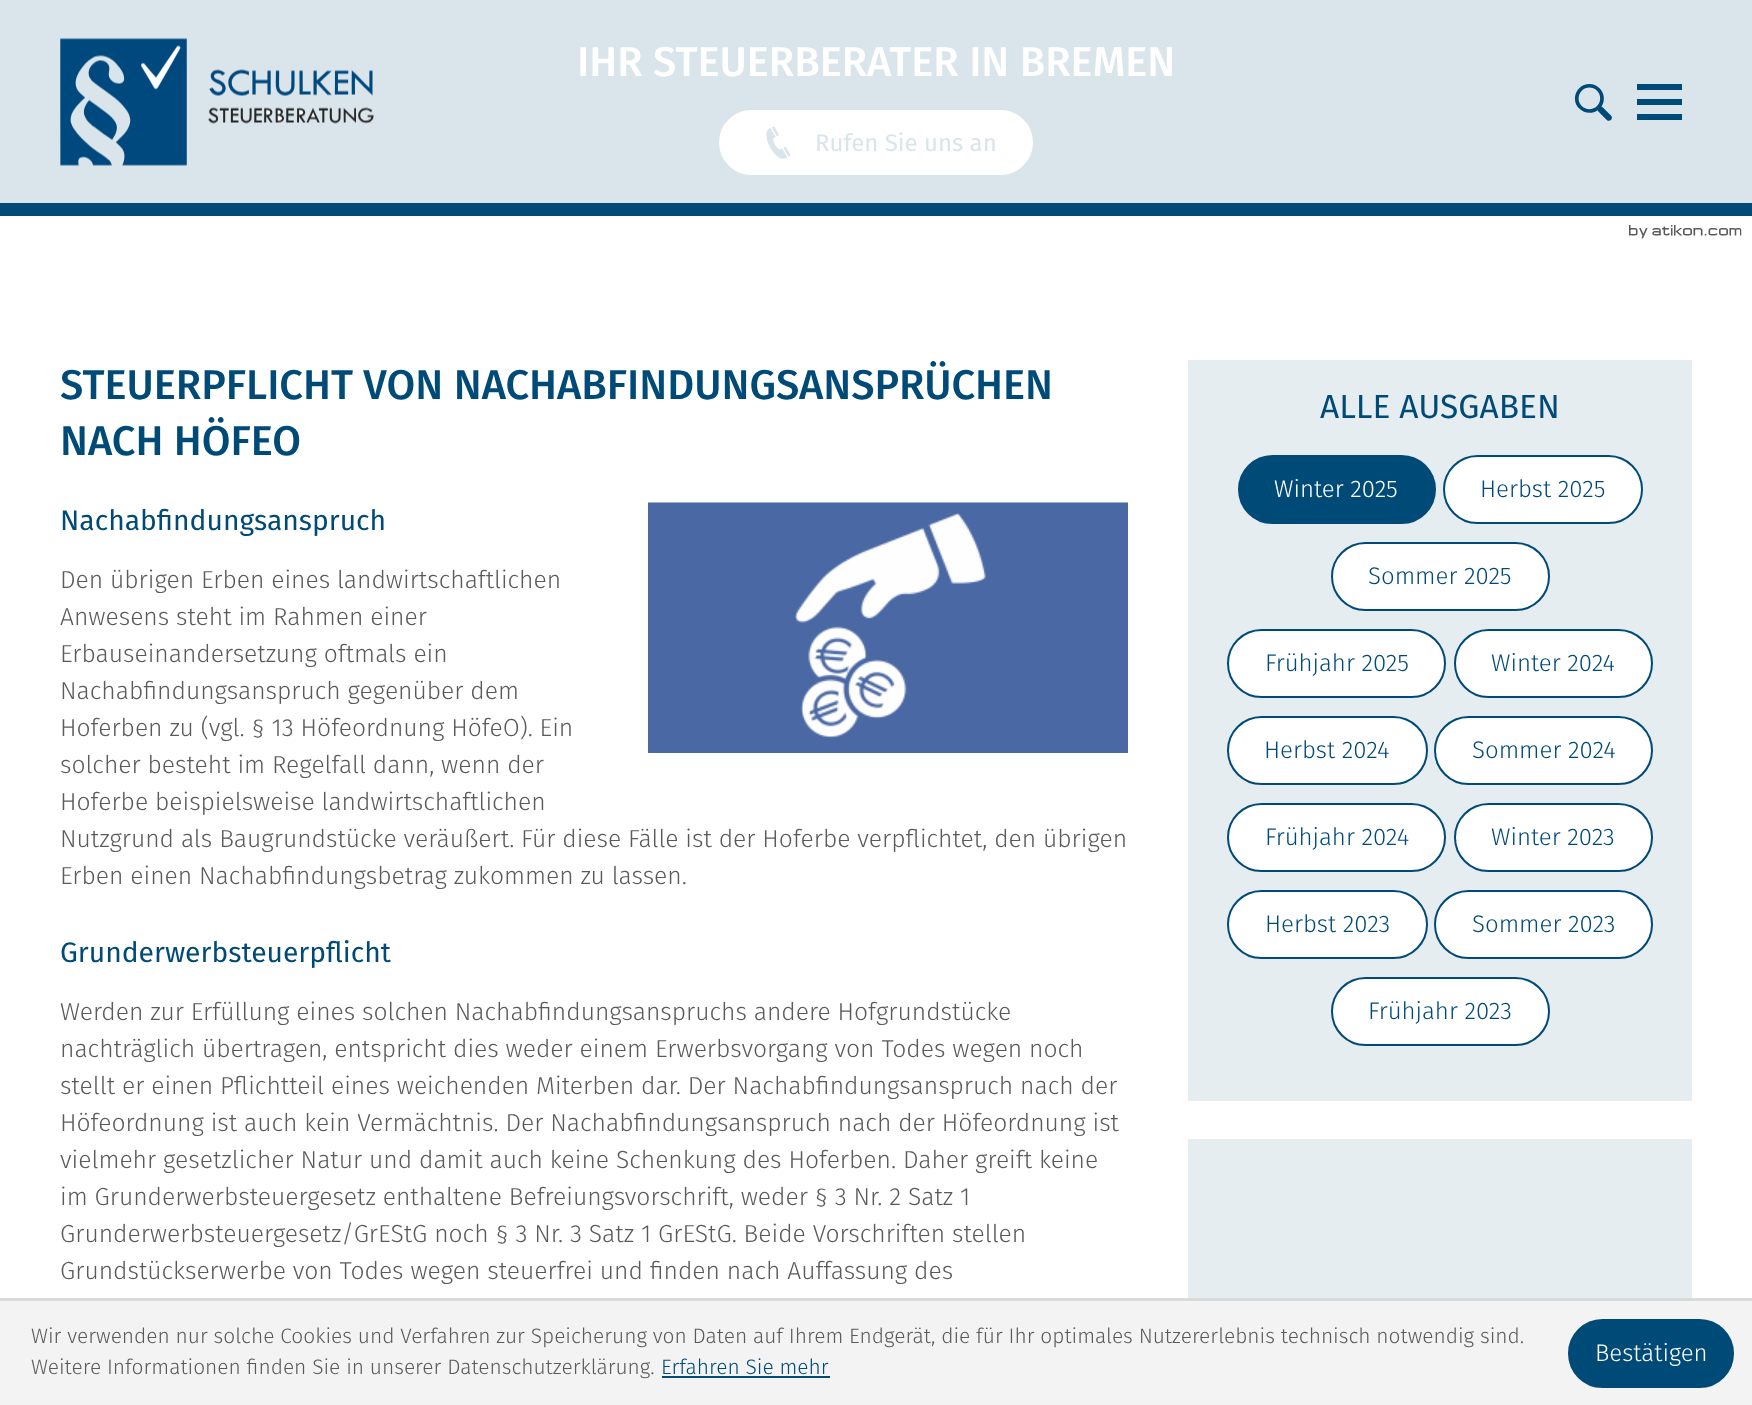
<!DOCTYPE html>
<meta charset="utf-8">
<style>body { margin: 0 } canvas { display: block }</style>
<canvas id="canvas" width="1752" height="1405"></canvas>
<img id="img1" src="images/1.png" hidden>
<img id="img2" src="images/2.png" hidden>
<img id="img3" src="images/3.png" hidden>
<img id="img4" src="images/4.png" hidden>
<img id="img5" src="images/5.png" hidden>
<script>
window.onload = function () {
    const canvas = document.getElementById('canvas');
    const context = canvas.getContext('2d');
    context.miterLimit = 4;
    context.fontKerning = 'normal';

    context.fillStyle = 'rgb(255, 255, 255)';
    context.fillRect(0, 0, 1752, 1405);
    context.fillStyle = 'rgb(217, 228, 235)';
    context.fillRect(0, 0, 1752, 203);
    context.drawImage(document.getElementById('img1'), 60, 38, 314, 128);
    context.drawImage(document.getElementById('img2'), 1574, 84, 38, 37);
    context.fillStyle = 'rgb(0, 74, 120)';
    context.fillRect(1637, 84, 45, 6);
    context.fillRect(1637, 99, 45, 6);
    context.fillRect(1637, 114, 45, 6);
    context.fillRect(0, 203, 1752, 13);
    context.fillStyle = 'rgb(255, 255, 255)';
    context.beginPath();
    context.roundRect(718, 109, 316, 67, 33.5);
    context.fill();
    context.strokeStyle = 'rgb(217, 228, 235)';
    context.lineWidth = 2;
    context.stroke();
    context.drawImage(document.getElementById('img3'), 766, 126, 25, 33);
    context.drawImage(document.getElementById('img4'), 1629, 225, 113, 14);
    context.drawImage(document.getElementById('img5'), 648, 502, 480, 251);
    context.fillStyle = 'rgb(229, 237, 241)';
    context.fillRect(1188, 360, 504, 741);
    context.fillStyle = 'rgb(0, 74, 120)';
    context.beginPath();
    context.roundRect(1239, 456, 196, 67, 33.5);
    context.fill();
    context.strokeStyle = 'rgb(0, 74, 120)';
    context.stroke();
    context.fillStyle = 'rgb(255, 255, 255)';
    context.beginPath();
    context.roundRect(1444, 456, 198, 67, 33.5);
    context.fill();
    context.stroke();
    context.beginPath();
    context.roundRect(1332, 543, 217, 67, 33.5);
    context.fill();
    context.stroke();
    context.beginPath();
    context.roundRect(1228, 630, 217, 67, 33.5);
    context.fill();
    context.stroke();
    context.beginPath();
    context.roundRect(1455, 630, 197, 67, 33.5);
    context.fill();
    context.stroke();
    context.beginPath();
    context.roundRect(1228, 717, 199, 67, 33.5);
    context.fill();
    context.stroke();
    context.beginPath();
    context.roundRect(1435, 717, 217, 67, 33.5);
    context.fill();
    context.stroke();
    context.beginPath();
    context.roundRect(1228, 804, 217, 67, 33.5);
    context.fill();
    context.stroke();
    context.beginPath();
    context.roundRect(1455, 804, 197, 67, 33.5);
    context.fill();
    context.stroke();
    context.beginPath();
    context.roundRect(1228, 891, 199, 67, 33.5);
    context.fill();
    context.stroke();
    context.beginPath();
    context.roundRect(1435, 891, 217, 67, 33.5);
    context.fill();
    context.stroke();
    context.beginPath();
    context.roundRect(1332, 978, 217, 67, 33.5);
    context.fill();
    context.stroke();
    context.fillStyle = 'rgb(229, 237, 241)';
    context.fillRect(1188, 1139, 504, 159);
    context.fillStyle = 'rgb(243, 243, 243)';
    context.fillRect(0, 1301, 1752, 104);
    context.fillStyle = 'rgb(218, 218, 218)';
    context.fillRect(0, 1298, 1752, 3);
    context.fillStyle = 'rgb(0, 74, 120)';
    context.fillRect(662, 1376, 168, 2);
    context.beginPath();
    context.roundRect(1569, 1320, 164, 67, 33.5);
    context.fill();
    context.stroke();
    context.font = '500 41.6px Fira Sans';
    context.fillStyle = 'rgb(255, 255, 255)';
    context.fillText('IHR STEUERBERATER IN BREMEN', 577, 76);
    context.font = '24px Fira Sans';
    context.fillStyle = 'rgb(217, 228, 235)';
    context.fillText('Rufen Sie uns an', 815, 151);
    context.font = '500 41.6px Fira Sans';
    context.fillStyle = 'rgb(0, 74, 120)';
    context.fillText('STEUERPFLICHT VON NACHABFINDUNGSANSPRÜCHEN', 60, 399);
    context.fillText('NACH HÖFEO', 60, 455);
    context.font = '28.25px Fira Sans';
    context.fillText('Nachabfindungsanspruch', 60, 530);
    context.font = '300 24.65px Fira Sans';
    context.fillStyle = 'rgb(90, 90, 90)';
    context.fillText('Den übrigen Erben eines landwirtschaftlichen', 60, 588);
    context.fillText('Anwesens steht im Rahmen einer', 60, 625);
    context.fillText('Erbauseinandersetzung oftmals ein', 60, 662);
    context.fillText('Nachabfindungsanspruch gegenüber dem', 60, 699);
    context.fillText('Hoferben zu (vgl. § 13 Höfeordnung HöfeO). Ein', 60, 736);
    context.fillText('solcher besteht im Regelfall dann, wenn der', 60, 773);
    context.fillText('Hoferbe beispielsweise landwirtschaftlichen', 60, 810);
    context.fillText('Nutzgrund als Baugrundstücke veräußert. Für diese Fälle ist der Hoferbe verpflichtet, den übrigen', 60, 847);
    context.fillText('Erben einen Nachabfindungsbetrag zukommen zu lassen.', 60, 884);
    context.font = '28.25px Fira Sans';
    context.fillStyle = 'rgb(0, 74, 120)';
    context.fillText('Grunderwerbsteuerpflicht', 60, 962);
    context.font = '300 24.65px Fira Sans';
    context.fillStyle = 'rgb(90, 90, 90)';
    context.fillText('Werden zur Erfüllung eines solchen Nachabfindungsanspruchs andere Hofgrundstücke', 60, 1020);
    context.fillText('nachträglich übertragen, entspricht dies weder einem Erwerbsvorgang von Todes wegen noch', 60, 1057);
    context.fillText('stellt er einen Pflichtteil eines weichenden Miterben dar. Der Nachabfindungsanspruch nach der', 60, 1094);
    context.fillText('Höfeordnung ist auch kein Vermächtnis. Der Nachabfindungsanspruch nach der Höfeordnung ist', 60, 1131);
    context.fillText('vielmehr gesetzlicher Natur und damit auch keine Schenkung des Hoferben. Daher greift keine', 60, 1168);
    context.fillText('im Grunderwerbsteuergesetz enthaltene Befreiungsvorschrift, weder § 3 Nr. 2 Satz 1', 60, 1205);
    context.fillText('Grunderwerbsteuergesetz/GrEStG noch § 3 Nr. 3 Satz 1 GrEStG. Beide Vorschriften stellen', 60, 1242);
    context.fillText('Grundstückserwerbe von Todes wegen steuerfrei und finden nach Auffassung des', 60, 1279);
    context.font = '33.5px Fira Sans';
    context.fillStyle = 'rgb(0, 74, 120)';
    context.fillText('ALLE AUSGABEN', 1320, 418);
    context.font = '300 24px Fira Sans';
    context.fillStyle = 'rgb(255, 255, 255)';
    context.fillText('Winter 2025', 1274, 497);
    context.fillStyle = 'rgb(0, 74, 120)';
    context.fillText('Herbst 2025', 1480, 497);
    context.fillText('Sommer 2025', 1368, 584);
    context.fillText('Frühjahr 2025', 1265, 671);
    context.fillText('Winter 2024', 1491, 671);
    context.fillText('Herbst 2024', 1264, 758);
    context.fillText('Sommer 2024', 1472, 758);
    context.fillText('Frühjahr 2024', 1265, 845);
    context.fillText('Winter 2023', 1491, 845);
    context.fillText('Herbst 2023', 1265, 932);
    context.fillText('Sommer 2023', 1472, 932);
    context.fillText('Frühjahr 2023', 1368, 1019);
    context.font = '300 20.95px Fira Sans';
    context.fillStyle = 'rgb(90, 90, 90)';
    context.fillText('Wir verwenden nur solche Cookies und Verfahren zur Speicherung von Daten auf Ihrem Endgerät, die für Ihr optimales Nutzererlebnis technisch notwendig sind.', 31, 1343);
    context.fillText('Weitere Informationen finden Sie in unserer Datenschutzerklärung.', 31, 1374);
    context.fillStyle = 'rgb(0, 74, 120)';
    context.fillText('Erfahren Sie mehr', 661, 1374);
    context.font = '300 24px Fira Sans';
    context.fillStyle = 'rgb(255, 255, 255)';
    context.fillText('Bestätigen', 1595, 1361);
};
</script>
